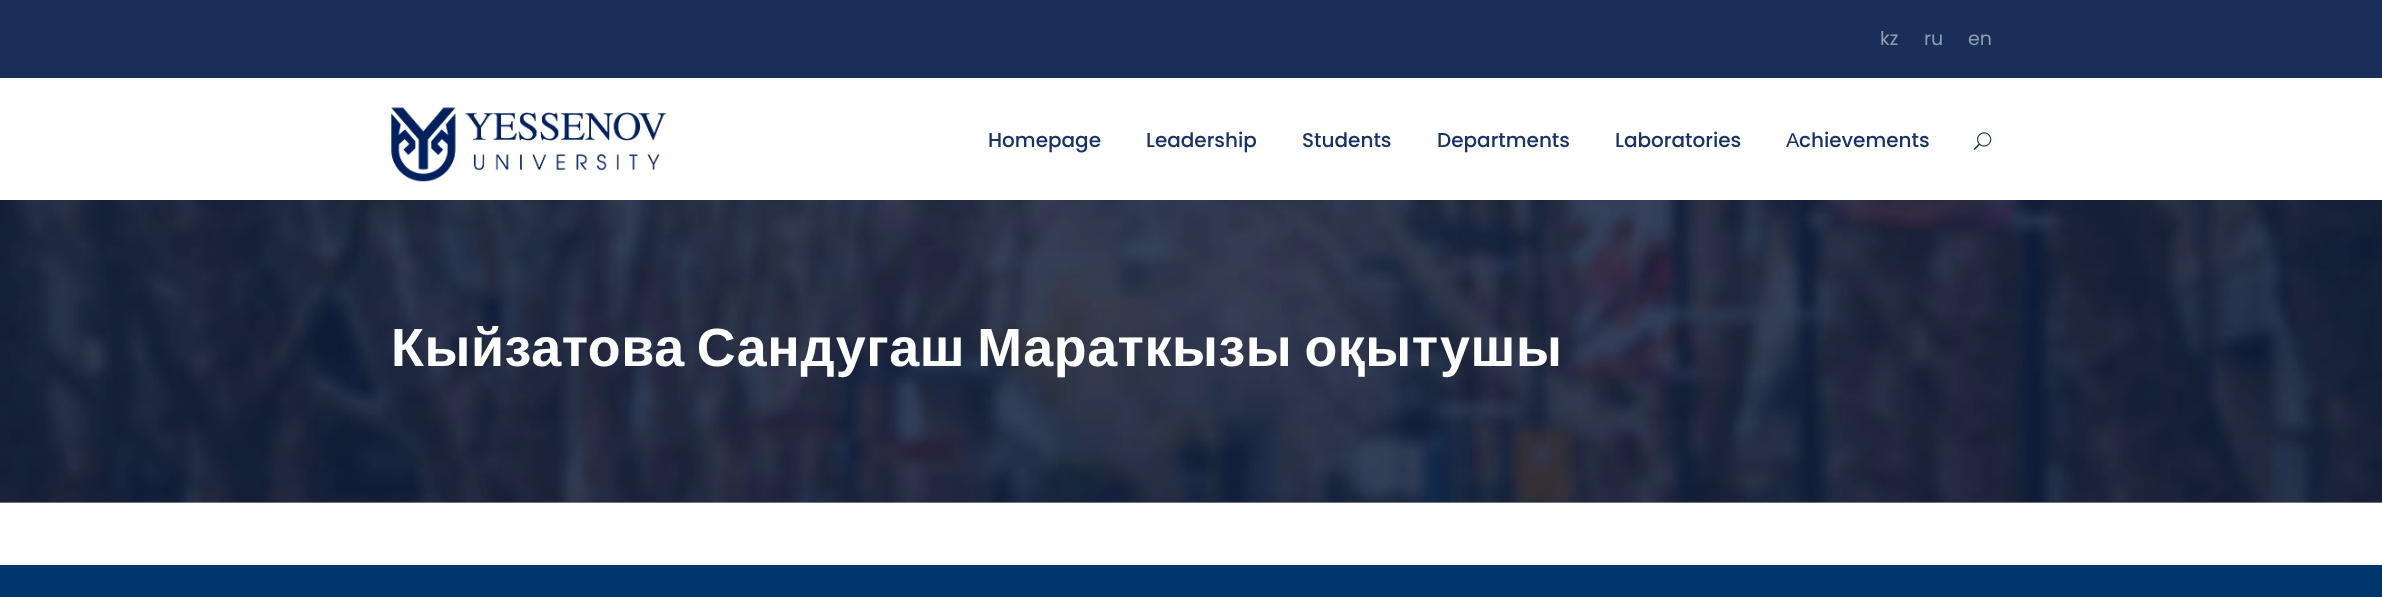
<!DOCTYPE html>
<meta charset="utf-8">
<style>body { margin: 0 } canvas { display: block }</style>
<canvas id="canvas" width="2382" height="597"></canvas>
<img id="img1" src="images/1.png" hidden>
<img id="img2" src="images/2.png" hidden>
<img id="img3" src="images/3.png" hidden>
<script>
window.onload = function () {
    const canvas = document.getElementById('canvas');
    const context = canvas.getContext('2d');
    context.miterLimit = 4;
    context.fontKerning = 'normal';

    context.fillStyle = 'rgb(255, 255, 255)';
    context.fillRect(0, 0, 2382, 597);
    context.fillStyle = 'rgb(25, 47, 89)';
    context.fillRect(0, 0, 2382, 78);
    context.drawImage(document.getElementById('img1'), 391, 107, 276, 75);
    context.drawImage(document.getElementById('img2'), 1973, 132, 19, 18);
    context.drawImage(document.getElementById('img3'), 0, 200, 2382, 303);
    context.fillStyle = 'rgba(0, 0, 0, 0.25)';
    context.fillRect(0, 200, 2382, 303);
    context.fillStyle = 'rgb(0, 53, 107)';
    context.fillRect(0, 565, 2382, 32);
    context.font = '19px Poppins';
    context.fillStyle = 'rgb(145, 155, 173)';
    context.fillText('kz', 1880, 45);
    context.fillText('ru', 1924, 45);
    context.fillText('en', 1968, 45);
    context.font = '500 20px Poppins';
    context.fillStyle = 'rgb(22, 50, 105)';
    context.fillText('Homepage', 988, 147);
    context.fillText('Leadership', 1146, 147);
    context.fillText('Students', 1302, 147);
    context.fillText('Departments', 1437, 147);
    context.fillText('Laboratories', 1615, 147);
    context.font = '20px Liberation Sans';
    context.fillText('А', 1786, 147);
    context.font = '500 20px Poppins';
    context.fillText('chievements', 1799, 147);
    context.letterSpacing = '0.6px';
    context.wordSpacing = '-3.5px';
    context.font = 'bold 53.75px Liberation Sans';
    context.fillStyle = 'rgb(255, 255, 255)';
    context.fillText('Кыйзатова Сандугаш Мараткызы оқытушы', 391, 366);
};
</script>
